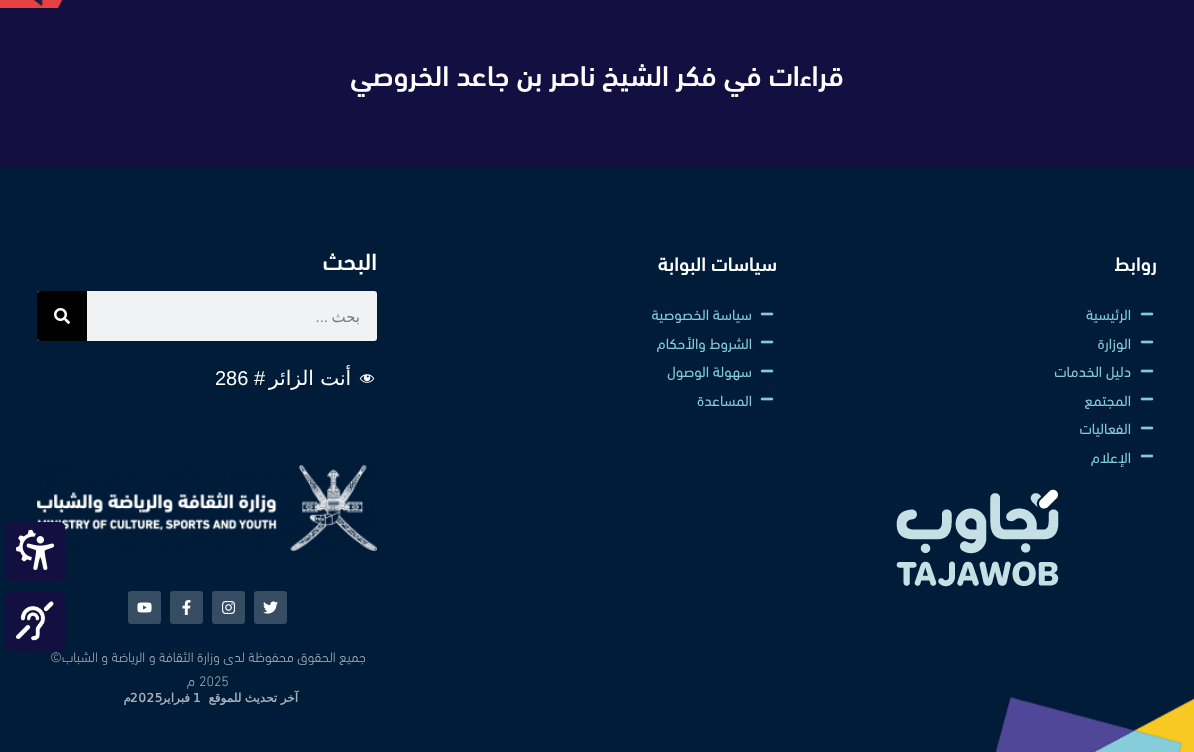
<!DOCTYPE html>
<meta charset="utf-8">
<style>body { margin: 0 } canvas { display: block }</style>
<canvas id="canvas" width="1194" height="752"></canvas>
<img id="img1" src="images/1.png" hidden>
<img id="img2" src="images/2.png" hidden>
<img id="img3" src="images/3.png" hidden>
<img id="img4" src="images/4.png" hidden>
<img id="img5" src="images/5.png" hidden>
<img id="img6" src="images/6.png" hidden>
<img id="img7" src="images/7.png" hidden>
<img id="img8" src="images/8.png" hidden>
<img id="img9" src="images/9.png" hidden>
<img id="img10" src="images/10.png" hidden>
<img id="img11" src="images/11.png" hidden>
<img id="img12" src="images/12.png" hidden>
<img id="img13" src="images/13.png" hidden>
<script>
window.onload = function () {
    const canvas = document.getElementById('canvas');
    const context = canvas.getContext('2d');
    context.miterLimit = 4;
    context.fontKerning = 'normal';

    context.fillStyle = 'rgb(19, 15, 65)';
    context.fillRect(0, 0, 1194, 752);
    context.drawImage(document.getElementById('img1'), 0, 0, 63, 8);
    context.fillStyle = 'rgb(0, 28, 56)';
    context.fillRect(0, 167, 1194, 585);
    context.drawImage(document.getElementById('img2'), 995, 697, 199, 55);
    context.drawImage(document.getElementById('img3'), 1140, 312, 14, 4);
    context.drawImage(document.getElementById('img3'), 1140, 340, 14, 4);
    context.drawImage(document.getElementById('img3'), 1140, 369, 14, 4);
    context.drawImage(document.getElementById('img3'), 1140, 397, 14, 4);
    context.drawImage(document.getElementById('img3'), 1140, 426, 14, 4);
    context.drawImage(document.getElementById('img3'), 1140, 454, 14, 4);
    context.drawImage(document.getElementById('img4'), 896, 489, 163, 98);
    context.drawImage(document.getElementById('img3'), 760, 312, 14, 4);
    context.drawImage(document.getElementById('img3'), 760, 340, 14, 4);
    context.drawImage(document.getElementById('img3'), 760, 369, 14, 4);
    context.drawImage(document.getElementById('img3'), 760, 397, 14, 4);
    context.fillStyle = 'rgb(241, 242, 243)';
    context.beginPath();
    context.roundRect(37, 291, 340, 50, 3);
    context.fill();
    context.fillStyle = 'rgb(0, 0, 0)';
    context.beginPath();
    context.roundRect(37, 291, 50, 50, [3, 0, 0, 3]);
    context.fill();
    context.drawImage(document.getElementById('img5'), 54, 308, 16, 16);
    context.drawImage(document.getElementById('img6'), 359, 374, 16, 9);
    context.drawImage(document.getElementById('img7'), 37, 465, 340, 86);
    context.fillStyle = 'rgb(54, 76, 98)';
    context.beginPath();
    context.roundRect(254, 591, 33, 33, 3);
    context.fill();
    context.drawImage(document.getElementById('img8'), 263, 601, 15, 13);
    context.beginPath();
    context.roundRect(212, 591, 33, 33, 3);
    context.fill();
    context.drawImage(document.getElementById('img9'), 222, 601, 14, 13);
    context.beginPath();
    context.roundRect(170, 591, 33, 33, 3);
    context.fill();
    context.drawImage(document.getElementById('img10'), 182, 600, 9, 15);
    context.beginPath();
    context.roundRect(128, 591, 33, 33, 3);
    context.fill();
    context.drawImage(document.getElementById('img11'), 137, 602, 15, 11);
    context.fillStyle = 'rgb(19, 15, 65)';
    context.beginPath();
    context.roundRect(5, 522, 60, 60, 5);
    context.fill();
    context.drawImage(document.getElementById('img12'), 15, 529, 40, 41);
    context.beginPath();
    context.roundRect(5, 592, 60, 60, 6);
    context.fill();
    context.drawImage(document.getElementById('img13'), 15, 601, 39, 40);
    context.direction = 'rtl';
    context.font = '500 29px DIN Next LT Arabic';
    context.fillStyle = 'rgb(255, 255, 255)';
    context.fillText('قراءات في فكر الشيخ ناصر بن جاعد الخروصي', 844, 86);
    context.font = '500 20px DIN Next LT Arabic';
    context.fillText('روابط', 1157, 271);
    context.font = '15px DIN Next LT Arabic';
    context.fillStyle = 'rgb(131, 203, 216)';
    context.fillText('الرئيسية', 1131, 320);
    context.fillText('الوزارة', 1131, 349);
    context.fillText('دليل الخدمات', 1131, 377);
    context.fillText('المجتمع', 1131, 406);
    context.fillText('الفعاليات', 1131, 434);
    context.fillText('الإعلام', 1131, 463);
    context.font = '500 20px DIN Next LT Arabic';
    context.fillStyle = 'rgb(255, 255, 255)';
    context.fillText('سياسات البوابة', 777, 271);
    context.font = '15px DIN Next LT Arabic';
    context.fillStyle = 'rgb(131, 203, 216)';
    context.fillText('سياسة الخصوصية', 752, 320);
    context.fillText('الشروط والأحكام', 752, 349);
    context.fillText('سهولة الوصول', 752, 377);
    context.fillText('المساعدة', 752, 406);
    context.font = '500 24px DIN Next LT Arabic';
    context.fillStyle = 'rgb(255, 255, 255)';
    context.fillText('البحث', 377, 270);
    context.font = '15px DejaVu Sans';
    context.fillStyle = 'rgb(120, 126, 134)';
    context.fillText('بحث', 360, 322);
    context.font = '15px Liberation Sans';
    context.fillText('...', 328, 322);
    context.font = '20px DejaVu Sans';
    context.fillStyle = 'rgb(255, 255, 255)';
    context.fillText('أنت الزائر', 351, 385);
    context.font = '20px Liberation Sans';
    context.fillText('#', 265, 385);
    context.direction = 'ltr';
    context.fillText('286', 215, 385);
    context.direction = 'rtl';
    context.font = '300 14px DIN Next LT Arabic';
    context.fillStyle = 'rgb(166, 176, 185)';
    context.fillText('جميع الحقوق محفوظة لدى وزارة الثقافة و الرياضة و الشباب©', 366, 662);
    context.direction = 'ltr';
    context.fillText('2025', 199, 686);
    context.direction = 'rtl';
    context.fillText('م', 195, 686);
    context.letterSpacing = '0.6px';
    context.wordSpacing = '-1px';
    context.font = 'bold 12px DejaVu Sans';
    context.fillText('آخر تحديث للموقع', 298, 702);
    context.wordSpacing = '0px';
    context.direction = 'ltr';
    context.fillText('1', 193, 702);
    context.fillText('2025', 130, 702);
    context.direction = 'rtl';
    context.fillText('فبراير', 190, 702);
    context.fillText('م', 131, 702);
};
</script>
